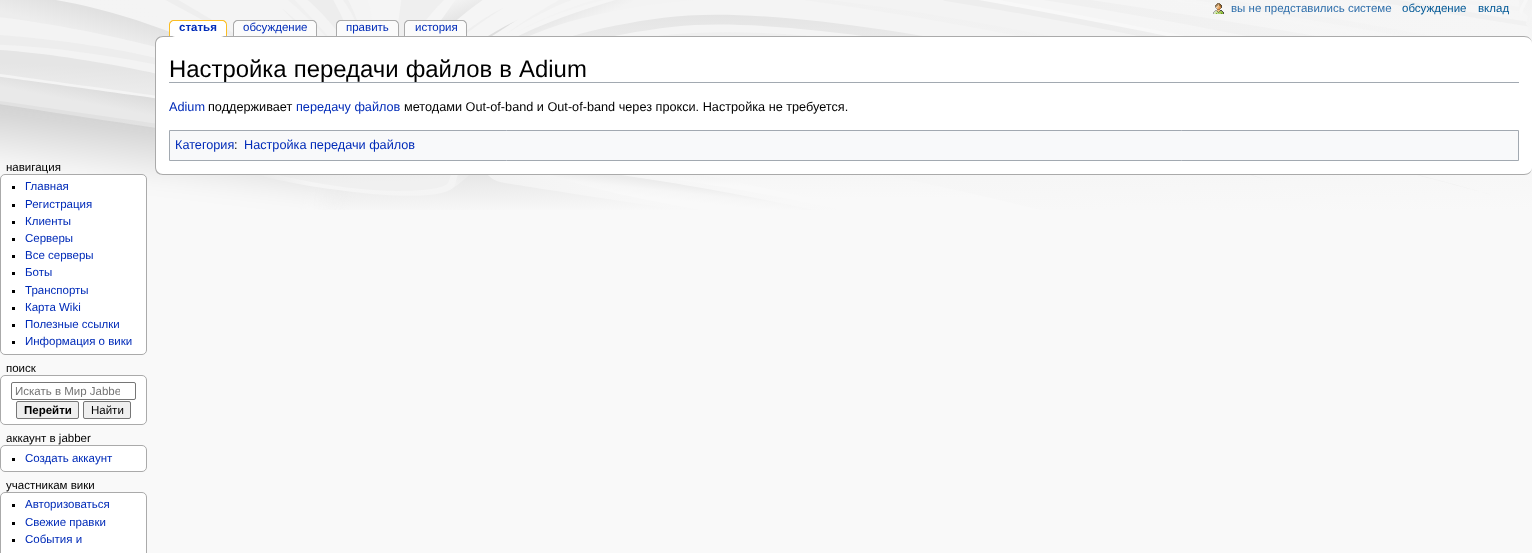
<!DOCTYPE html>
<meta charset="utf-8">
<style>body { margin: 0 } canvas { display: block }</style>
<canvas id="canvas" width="1532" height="553"></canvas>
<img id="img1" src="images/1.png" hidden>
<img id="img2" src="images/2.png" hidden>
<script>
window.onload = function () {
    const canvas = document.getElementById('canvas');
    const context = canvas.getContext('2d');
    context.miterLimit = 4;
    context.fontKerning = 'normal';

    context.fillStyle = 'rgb(249, 249, 249)';
    context.fillRect(0, 0, 1532, 553);
    context.drawImage(document.getElementById('img1'), 0, 0, 1532, 210);
    context.drawImage(document.getElementById('img2'), 1213, 3, 11, 11);
    context.fillStyle = 'rgb(255, 255, 255)';
    context.beginPath();
    context.roundRect(169, 20, 58, 25, 5);
    context.fill();
    context.fillStyle = 'rgb(250, 189, 35)';
    context.beginPath();
    context.moveTo(174, 20);
    context.lineTo(222, 20);
    context.bezierCurveTo(225, 20, 227, 22, 227, 25);
    context.lineTo(227, 40);
    context.bezierCurveTo(227, 43, 225, 45, 222, 45);
    context.lineTo(174, 45);
    context.bezierCurveTo(171, 45, 169, 43, 169, 40);
    context.lineTo(169, 25);
    context.bezierCurveTo(169, 22, 171, 20, 174, 20);
    context.closePath();
    context.moveTo(174, 21);
    context.lineTo(222, 21);
    context.bezierCurveTo(224, 21, 226, 23, 226, 25);
    context.lineTo(226, 40);
    context.bezierCurveTo(226, 43, 224, 45, 222, 45);
    context.lineTo(174, 45);
    context.bezierCurveTo(172, 45, 170, 43, 170, 40);
    context.lineTo(170, 25);
    context.bezierCurveTo(170, 23, 172, 21, 174, 21);
    context.closePath();
    context.fill('evenodd');
    context.fillStyle = 'rgb(255, 255, 255)';
    context.beginPath();
    context.roundRect(233, 20, 84, 25, 5);
    context.fill();
    context.fillStyle = 'rgb(170, 170, 170)';
    context.beginPath();
    context.moveTo(238, 20);
    context.lineTo(312, 20);
    context.bezierCurveTo(315, 20, 317, 22, 317, 25);
    context.lineTo(317, 40);
    context.bezierCurveTo(317, 43, 315, 45, 312, 45);
    context.lineTo(238, 45);
    context.bezierCurveTo(235, 45, 233, 43, 233, 40);
    context.lineTo(233, 25);
    context.bezierCurveTo(233, 22, 235, 20, 238, 20);
    context.closePath();
    context.moveTo(238, 21);
    context.lineTo(312, 21);
    context.bezierCurveTo(314, 21, 316, 23, 316, 25);
    context.lineTo(316, 40);
    context.bezierCurveTo(316, 43, 314, 45, 312, 45);
    context.lineTo(238, 45);
    context.bezierCurveTo(236, 45, 234, 43, 234, 40);
    context.lineTo(234, 25);
    context.bezierCurveTo(234, 23, 236, 21, 238, 21);
    context.closePath();
    context.fill('evenodd');
    context.fillStyle = 'rgb(251, 251, 251)';
    context.beginPath();
    context.roundRect(234, 21, 82, 16, 5);
    context.fill();
    context.fillStyle = 'rgb(255, 255, 255)';
    context.beginPath();
    context.roundRect(336, 20, 63, 25, 5);
    context.fill();
    context.fillStyle = 'rgb(170, 170, 170)';
    context.beginPath();
    context.moveTo(341, 20);
    context.lineTo(394, 20);
    context.bezierCurveTo(397, 20, 399, 22, 399, 25);
    context.lineTo(399, 40);
    context.bezierCurveTo(399, 43, 397, 45, 394, 45);
    context.lineTo(341, 45);
    context.bezierCurveTo(338, 45, 336, 43, 336, 40);
    context.lineTo(336, 25);
    context.bezierCurveTo(336, 22, 338, 20, 341, 20);
    context.closePath();
    context.moveTo(341, 21);
    context.lineTo(394, 21);
    context.bezierCurveTo(396, 21, 398, 23, 398, 25);
    context.lineTo(398, 40);
    context.bezierCurveTo(398, 43, 396, 45, 394, 45);
    context.lineTo(341, 45);
    context.bezierCurveTo(339, 45, 337, 43, 337, 40);
    context.lineTo(337, 25);
    context.bezierCurveTo(337, 23, 339, 21, 341, 21);
    context.closePath();
    context.fill('evenodd');
    context.fillStyle = 'rgb(251, 251, 251)';
    context.beginPath();
    context.roundRect(337, 21, 61, 16, 5);
    context.fill();
    context.fillStyle = 'rgb(255, 255, 255)';
    context.beginPath();
    context.roundRect(404, 20, 63, 25, 5);
    context.fill();
    context.fillStyle = 'rgb(170, 170, 170)';
    context.beginPath();
    context.moveTo(409, 20);
    context.lineTo(462, 20);
    context.bezierCurveTo(465, 20, 467, 22, 467, 25);
    context.lineTo(467, 40);
    context.bezierCurveTo(467, 43, 465, 45, 462, 45);
    context.lineTo(409, 45);
    context.bezierCurveTo(406, 45, 404, 43, 404, 40);
    context.lineTo(404, 25);
    context.bezierCurveTo(404, 22, 406, 20, 409, 20);
    context.closePath();
    context.moveTo(409, 21);
    context.lineTo(462, 21);
    context.bezierCurveTo(464, 21, 466, 23, 466, 25);
    context.lineTo(466, 40);
    context.bezierCurveTo(466, 43, 464, 45, 462, 45);
    context.lineTo(409, 45);
    context.bezierCurveTo(407, 45, 405, 43, 405, 40);
    context.lineTo(405, 25);
    context.bezierCurveTo(405, 23, 407, 21, 409, 21);
    context.closePath();
    context.fill('evenodd');
    context.fillStyle = 'rgb(251, 251, 251)';
    context.beginPath();
    context.roundRect(405, 21, 61, 16, 5);
    context.fill();
    context.fillStyle = 'rgb(255, 255, 255)';
    context.beginPath();
    context.roundRect(155, 36, 1377, 139, 8);
    context.fill();
    context.fillStyle = 'rgb(170, 170, 170)';
    context.beginPath();
    context.moveTo(163, 36);
    context.lineTo(1524, 36);
    context.bezierCurveTo(1529, 36, 1532, 39, 1532, 44);
    context.lineTo(1532, 167);
    context.bezierCurveTo(1532, 172, 1529, 175, 1524, 175);
    context.lineTo(163, 175);
    context.bezierCurveTo(158, 175, 155, 172, 155, 167);
    context.lineTo(155, 44);
    context.bezierCurveTo(155, 39, 158, 36, 163, 36);
    context.closePath();
    context.moveTo(163, 37);
    context.lineTo(1524, 37);
    context.bezierCurveTo(1529, 37, 1532, 40, 1532, 44);
    context.lineTo(1532, 167);
    context.bezierCurveTo(1532, 171, 1529, 174, 1524, 174);
    context.lineTo(163, 174);
    context.bezierCurveTo(159, 174, 156, 171, 156, 167);
    context.lineTo(156, 44);
    context.bezierCurveTo(156, 40, 159, 37, 163, 37);
    context.closePath();
    context.fill('evenodd');
    context.fillStyle = 'rgb(255, 255, 255)';
    context.beginPath();
    context.roundRect(170, 21, 56, 16, 5);
    context.fill();
    context.beginPath();
    context.roundRect(0.5, 174.5, 146, 180, 4.5);
    context.fill();
    context.strokeStyle = 'rgb(170, 170, 170)';
    context.stroke();
    context.fillStyle = 'rgb(0, 0, 0)';
    context.fillRect(12, 186, 3, 3);
    context.fillRect(12, 204, 3, 3);
    context.fillRect(12, 221, 3, 3);
    context.fillRect(12, 238, 3, 3);
    context.fillRect(12, 255, 3, 3);
    context.fillRect(12, 272, 3, 3);
    context.fillRect(12, 290, 3, 3);
    context.fillRect(12, 307, 3, 3);
    context.fillRect(12, 324, 3, 3);
    context.fillRect(12, 341, 3, 3);
    context.fillStyle = 'rgb(255, 255, 255)';
    context.beginPath();
    context.roundRect(0.5, 375.5, 146, 49, 4.5);
    context.fill();
    context.stroke();
    context.beginPath();
    context.roundRect(11.5, 382.5, 124, 17, 1.5);
    context.strokeStyle = 'rgb(118, 118, 118)';
    context.stroke();
    context.fillStyle = 'rgb(239, 239, 239)';
    context.beginPath();
    context.roundRect(16.5, 401.5, 62, 17, 1.5);
    context.fill();
    context.stroke();
    context.beginPath();
    context.roundRect(83.5, 401.5, 47, 17, 1.5);
    context.fill();
    context.stroke();
    context.fillStyle = 'rgb(255, 255, 255)';
    context.beginPath();
    context.roundRect(0.5, 445.5, 146, 26, 4.5);
    context.fill();
    context.strokeStyle = 'rgb(170, 170, 170)';
    context.stroke();
    context.fillStyle = 'rgb(0, 0, 0)';
    context.fillRect(12, 458, 3, 3);
    context.fillStyle = 'rgb(255, 255, 255)';
    context.beginPath();
    context.roundRect(0.5, 492.5, 146, 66, 4.5);
    context.fill();
    context.stroke();
    context.fillStyle = 'rgb(0, 0, 0)';
    context.fillRect(12, 504, 3, 3);
    context.fillRect(12, 522, 3, 3);
    context.fillRect(12, 539, 3, 3);
    context.fillStyle = 'rgb(162, 169, 177)';
    context.fillRect(169, 82, 1350, 1);
    context.fillStyle = 'rgb(248, 249, 250)';
    context.beginPath();
    context.rect(169.5, 130.5, 1349, 30);
    context.fill();
    context.strokeStyle = 'rgb(162, 169, 177)';
    context.stroke();
    context.font = '11.5px Liberation Sans';
    context.fillStyle = 'rgb(47, 111, 171)';
    context.fillText('вы не представились системе', 1231, 12);
    context.fillStyle = 'rgb(0, 88, 150)';
    context.fillText('обсуждение', 1402, 12);
    context.fillText('вклад', 1478, 12);
    context.font = 'bold 11.5px Liberation Sans';
    context.fillStyle = 'rgb(0, 43, 184)';
    context.fillText('статья', 179, 31);
    context.font = '11.5px Liberation Sans';
    context.fillText('обсуждение', 243, 31);
    context.fillText('править', 346, 31);
    context.fillText('история', 415, 31);
    context.fillStyle = 'rgb(0, 0, 0)';
    context.fillText('навигация', 6, 171);
    context.fillStyle = 'rgb(0, 43, 184)';
    context.fillText('Главная', 25, 190);
    context.fillText('Регистрация', 25, 208);
    context.fillText('Клиенты', 25, 225);
    context.fillText('Серверы', 25, 242);
    context.fillText('Все серверы', 25, 259);
    context.fillText('Боты', 25, 276);
    context.fillText('Транспорты', 25, 294);
    context.fillText('Карта Wiki', 25, 311);
    context.fillText('Полезные ссылки', 25, 328);
    context.fillText('Информация о вики', 25, 345);
    context.fillStyle = 'rgb(0, 0, 0)';
    context.fillText('поиск', 6, 372);
    context.save();
    context.beginPath();
    context.rect(15, 385, 105, 12);
    context.clip();
    context.fillStyle = 'rgb(117, 117, 117)';
    context.fillText('Искать в Мир Jabbe', 15, 395);
    context.restore();
    context.font = 'bold 11.5px Liberation Sans';
    context.fillText('Перейти', 24, 414);
    context.font = '11.5px Liberation Sans';
    context.fillText('Найти', 91, 414);
    context.fillText('аккаунт в jabber', 6, 442);
    context.fillStyle = 'rgb(0, 43, 184)';
    context.fillText('Создать аккаунт', 25, 462);
    context.fillStyle = 'rgb(0, 0, 0)';
    context.fillText('участникам вики', 6, 489);
    context.fillStyle = 'rgb(0, 43, 184)';
    context.fillText('Авторизоваться', 25, 508);
    context.fillText('Свежие правки', 25, 526);
    context.fillText('События и', 25, 543);
    context.wordSpacing = '0.5px';
    context.font = '23.9px Liberation Sans';
    context.fillStyle = 'rgb(0, 0, 0)';
    context.fillText('Настройка передачи файлов в Adium', 169, 77);
    context.wordSpacing = '0px';
    context.font = '12.7px Liberation Sans';
    context.fillStyle = 'rgb(0, 43, 184)';
    context.fillText('Adium', 169, 111);
    context.fillStyle = 'rgb(0, 0, 0)';
    context.fillText('поддерживает', 208, 111);
    context.fillStyle = 'rgb(0, 43, 184)';
    context.fillText('передачу файлов', 296, 111);
    context.fillStyle = 'rgb(0, 0, 0)';
    context.fillText('методами Out-of-band и Out-of-band через прокси. Настройка не требуется.', 404, 111);
    context.fillStyle = 'rgb(0, 43, 184)';
    context.fillText('Категория', 175, 149);
    context.fillStyle = 'rgb(0, 0, 0)';
    context.fillText(':', 234, 149);
    context.fillStyle = 'rgb(0, 43, 184)';
    context.fillText('Настройка передачи файлов', 244, 149);
};
</script>
